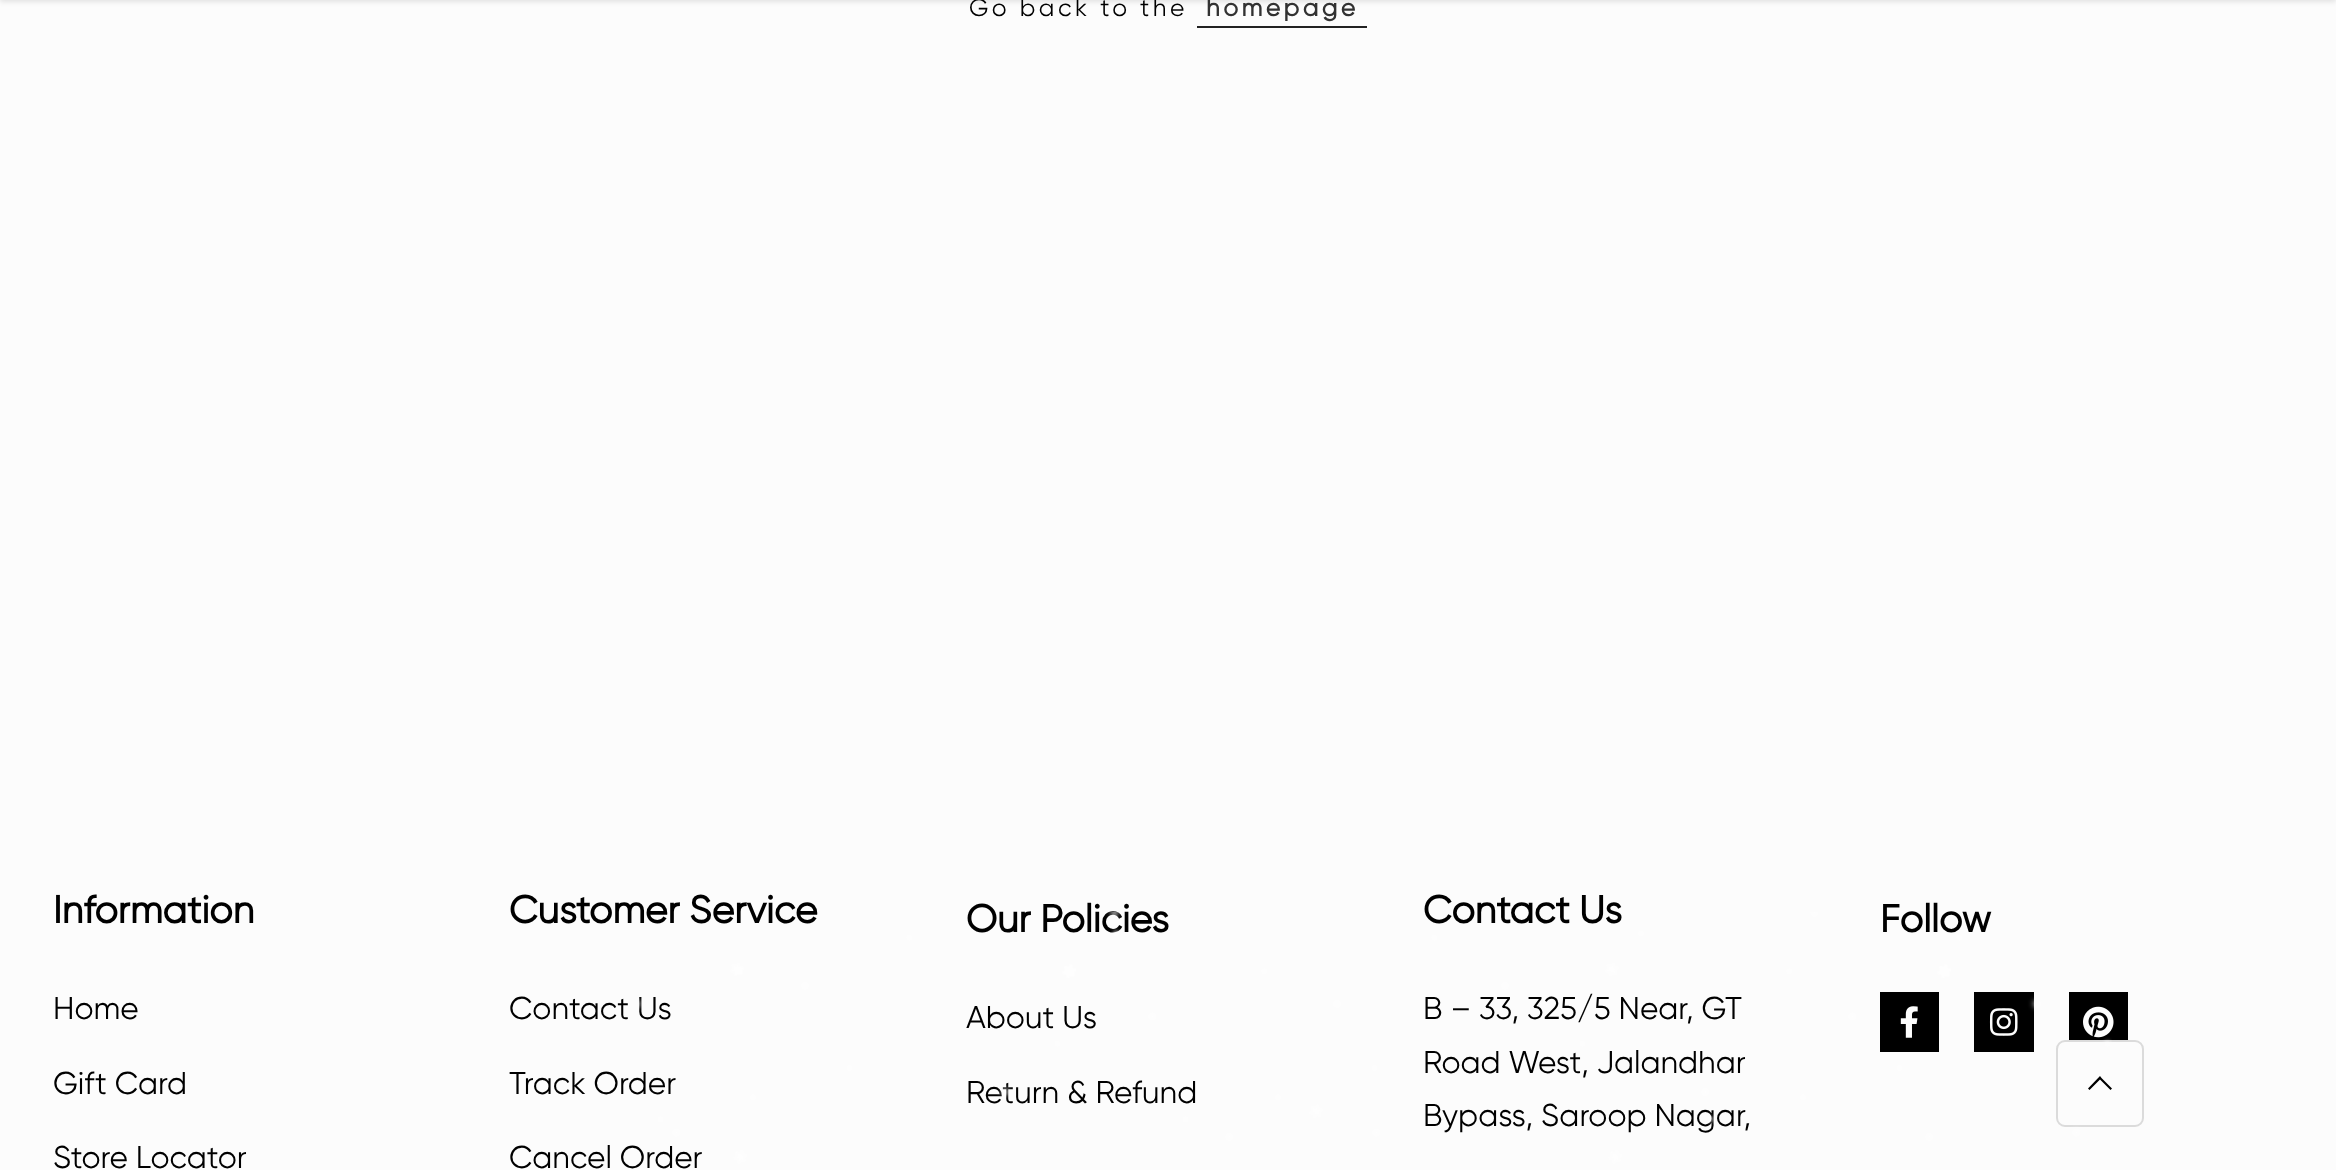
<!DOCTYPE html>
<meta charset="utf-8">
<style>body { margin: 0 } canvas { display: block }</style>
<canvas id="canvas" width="2336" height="1170"></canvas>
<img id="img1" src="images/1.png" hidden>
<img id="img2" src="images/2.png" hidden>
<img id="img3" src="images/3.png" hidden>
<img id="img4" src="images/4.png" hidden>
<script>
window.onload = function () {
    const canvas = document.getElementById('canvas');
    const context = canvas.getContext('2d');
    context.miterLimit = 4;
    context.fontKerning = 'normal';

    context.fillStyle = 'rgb(252, 252, 252)';
    context.fillRect(0, 0, 2336, 1170);
    context.fillStyle = 'rgba(0, 0, 0, 0.1)';
    context.filter = 'blur(2.5px)';
    context.beginPath();
    context.rect(0, -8, 2336, 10);
    context.fill();
    context.filter = 'none';
    context.fillStyle = 'rgb(34, 34, 34)';
    context.fillRect(1197, 26, 170, 2);
    context.fillStyle = 'rgb(0, 0, 0)';
    context.fillRect(1880, 992, 59, 60);
    context.drawImage(document.getElementById('img1'), 1900, 1006, 18, 32);
    context.fillRect(1974, 992, 60, 60);
    context.drawImage(document.getElementById('img2'), 1989, 1008, 29, 28);
    context.fillRect(2069, 992, 59, 48);
    context.drawImage(document.getElementById('img3'), 2083, 1006, 31, 32);
    context.beginPath();
    context.roundRect(2057, 1041, 86, 85, 8);
    context.strokeStyle = 'rgb(219, 219, 219)';
    context.lineWidth = 2;
    context.stroke();
    context.beginPath();
    context.moveTo(2101.5, 1078);
    context.lineTo(2100, 1076);
    context.lineTo(2088, 1088.5);
    context.lineTo(2089.5, 1090);
    context.lineTo(2100, 1079.5);
    context.lineTo(2110.5, 1090);
    context.lineTo(2112, 1088.5);
    context.lineTo(2106, 1082.5);
    context.closePath();
    context.fill();
    context.letterSpacing = '3.5px';
    context.font = '24.5px Gilroy';
    context.fillText('Go back to the', 969, 16);
    context.font = 'bold 24.5px Gilroy';
    context.fillStyle = 'rgb(50, 50, 50)';
    context.fillText('homepage', 1206, 16);
    context.letterSpacing = '0px';
    context.font = 'bold 38.5px Gilroy';
    context.fillStyle = 'rgb(0, 0, 0)';
    context.fillText('Information', 53, 923);
    context.font = '31.5px Gilroy';
    context.fillText('Home', 53, 1019);
    context.fillText('Gift Card', 53, 1094);
    context.fillText('Store Locator', 53, 1168);
    context.font = 'bold 38.5px Gilroy';
    context.fillText('Customer Service', 509, 923);
    context.font = '31.5px Gilroy';
    context.fillText('Contact Us', 509, 1019);
    context.fillText('Track Order', 509, 1094);
    context.fillText('Cancel Order', 509, 1168);
    context.font = 'bold 38.5px Gilroy';
    context.fillText('Our Policies', 966, 932);
    context.font = '31.5px Gilroy';
    context.fillText('About Us', 966, 1028);
    context.fillText('Return & Refund', 966, 1103);
    context.font = 'bold 38.5px Gilroy';
    context.fillText('Contact Us', 1423, 923);
    context.font = '31.5px Gilroy';
    context.fillText('B – 33, 325/5 Near, GT', 1423, 1019);
    context.fillText('Road West, Jalandhar', 1423, 1073);
    context.fillText('Bypass, Saroop Nagar,', 1423, 1126);
    context.font = 'bold 38.5px Gilroy';
    context.fillText('Follow', 1880, 932);
    context.drawImage(document.getElementById('img4'), 639, 912, 1473, 253);
};
</script>
